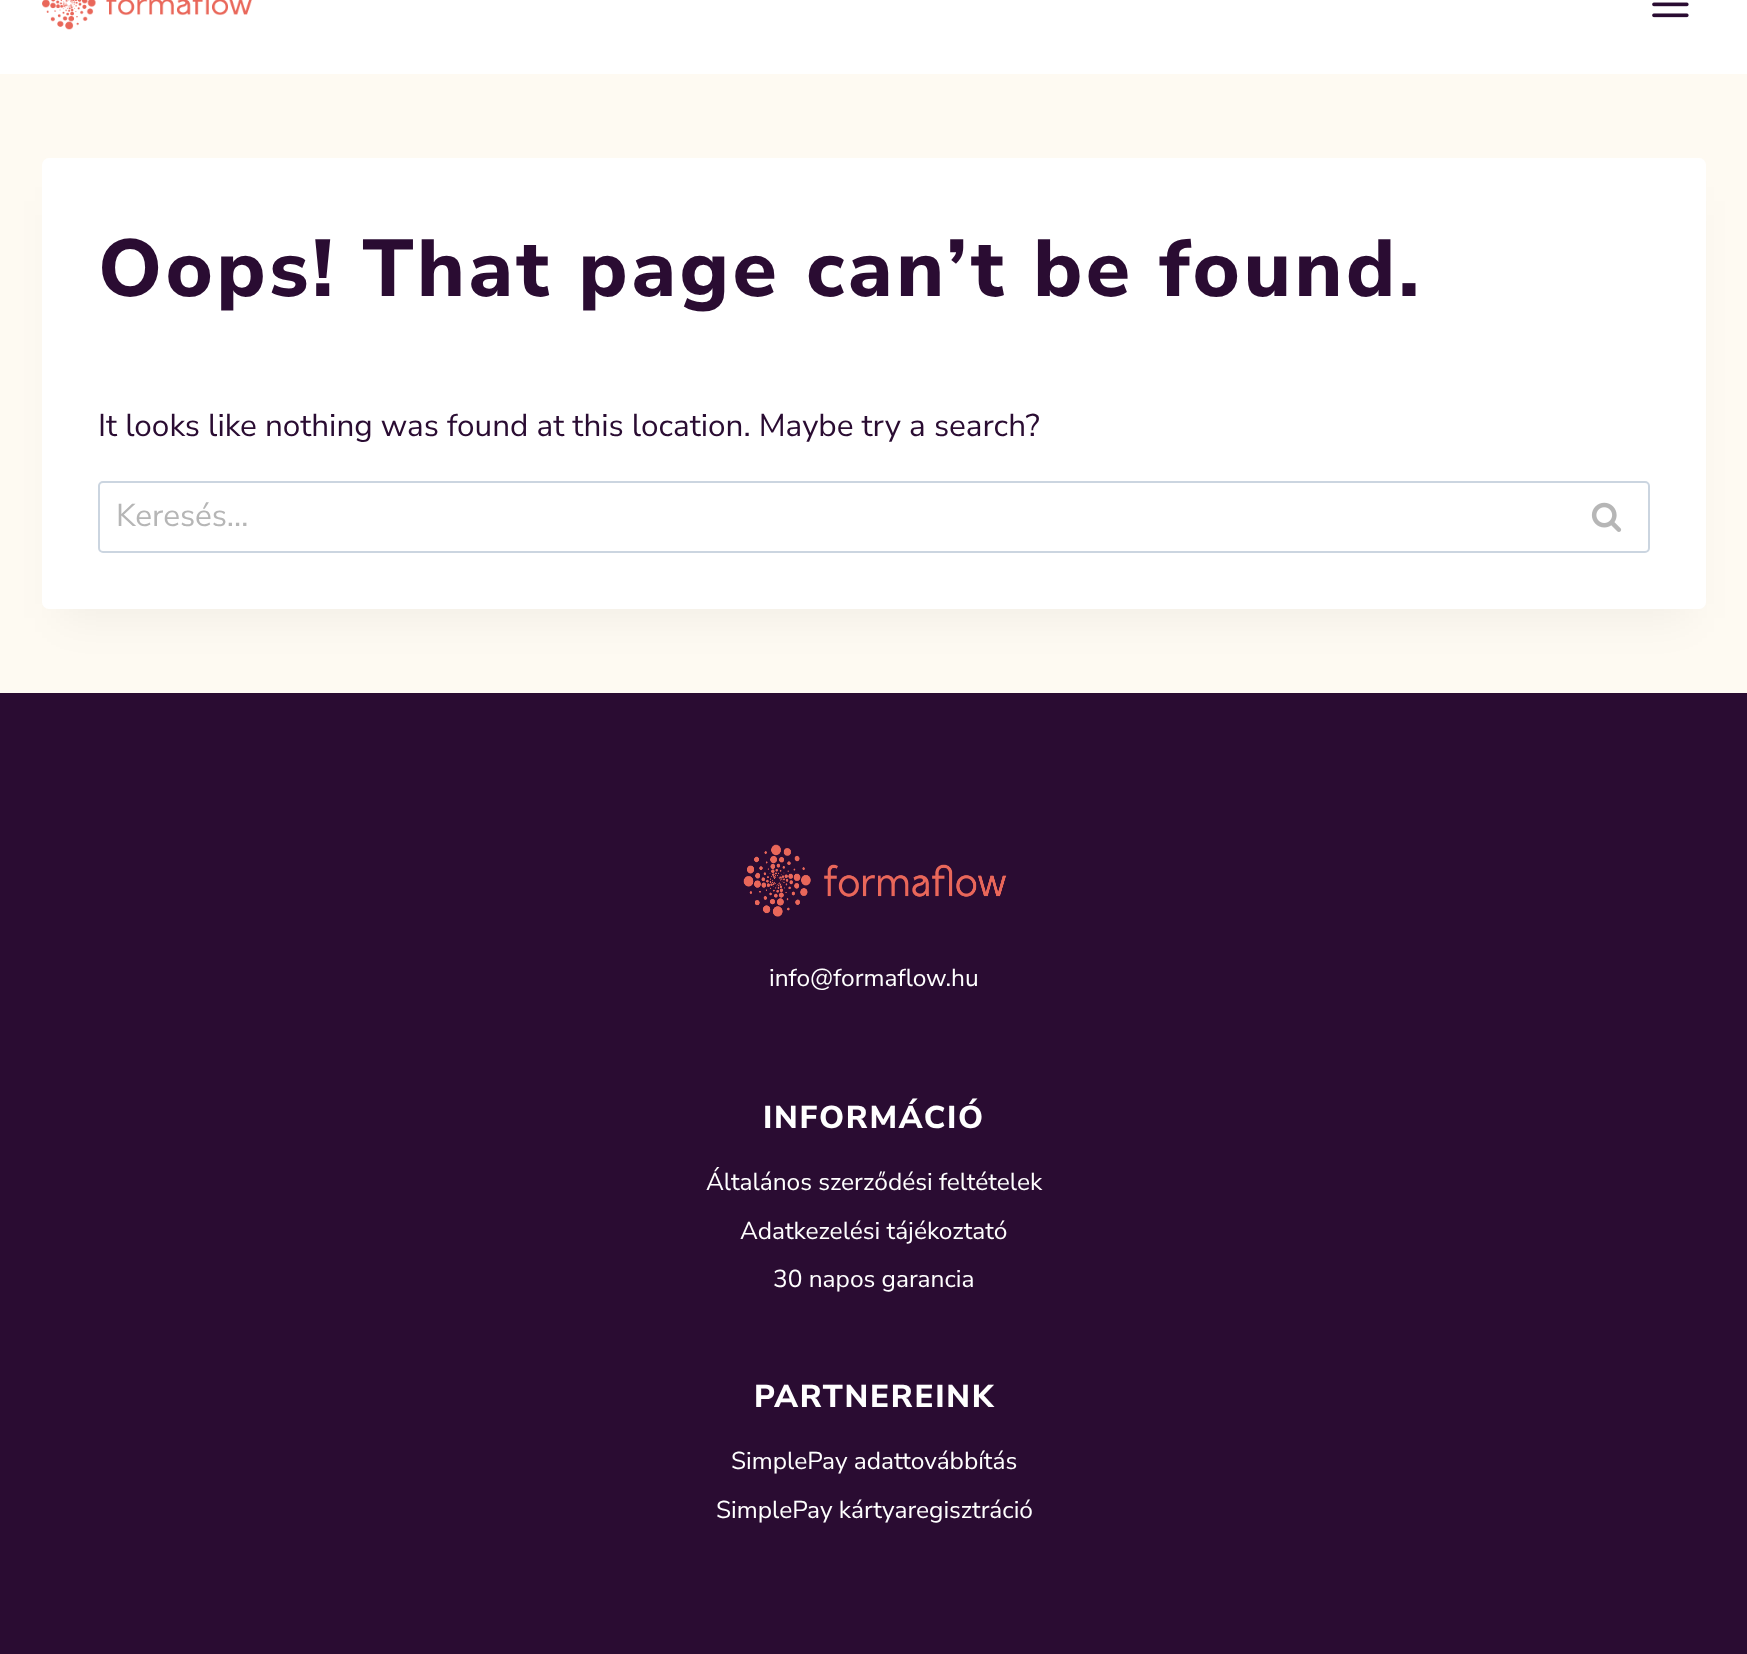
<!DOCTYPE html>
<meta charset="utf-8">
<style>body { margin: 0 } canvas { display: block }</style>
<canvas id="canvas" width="1747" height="1654"></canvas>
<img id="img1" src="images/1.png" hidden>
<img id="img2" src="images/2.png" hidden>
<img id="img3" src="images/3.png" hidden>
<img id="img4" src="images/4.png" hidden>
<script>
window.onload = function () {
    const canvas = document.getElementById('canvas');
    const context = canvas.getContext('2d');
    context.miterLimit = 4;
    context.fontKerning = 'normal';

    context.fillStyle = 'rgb(254, 250, 242)';
    context.fillRect(0, 0, 1747, 1654);
    context.fillStyle = 'rgb(255, 255, 255)';
    context.fillRect(0, 0, 1747, 74);
    context.drawImage(document.getElementById('img1'), 42, 0, 210, 30);
    context.drawImage(document.getElementById('img2'), 1652, 2, 37, 16);
    context.fillStyle = 'rgba(0, 0, 0, 0.05)';
    context.filter = 'blur(22px)';
    context.beginPath();
    context.rect(60, 201, 1629, 417);
    context.fill();
    context.filter = 'none';
    context.fillStyle = 'rgb(255, 255, 255)';
    context.beginPath();
    context.roundRect(42, 158, 1664, 451, 7);
    context.fill();
    context.beginPath();
    context.roundRect(99, 482, 1550, 70, 4);
    context.strokeStyle = 'rgb(203, 213, 224)';
    context.lineWidth = 2;
    context.stroke();
    context.drawImage(document.getElementById('img3'), 1591, 502, 31, 30);
    context.fillStyle = 'rgb(42, 12, 50)';
    context.fillRect(0, 693, 1747, 961);
    context.drawImage(document.getElementById('img4'), 743, 844, 264, 73);
    context.letterSpacing = '3.5px';
    context.font = '800 80.5px Nunito Sans';
    context.fillText('Oops! That page can’t be found.', 98, 296);
    context.letterSpacing = '0px';
    context.font = '31.5px Nunito Sans';
    context.fillText('It looks like nothing was found at this location. Maybe try a search?', 98, 436);
    context.fillStyle = 'rgb(182, 182, 182)';
    context.fillText('Keresés…', 116, 526);
    context.font = '24.5px Nunito Sans';
    context.fillStyle = 'rgb(255, 255, 255)';
    context.fillText('info@formaflow.hu', 769, 986);
    context.letterSpacing = '1.75px';
    context.font = '800 31.5px Nunito Sans';
    context.fillText('INFORMÁCIÓ', 763, 1128);
    context.letterSpacing = '0px';
    context.font = '24.5px Nunito Sans';
    context.fillText('Általános szerződési feltételek', 706, 1190);
    context.fillText('Adatkezelési tájékoztató', 740, 1239);
    context.fillText('30 napos garancia', 773, 1287);
    context.letterSpacing = '1.75px';
    context.font = '800 31.5px Nunito Sans';
    context.fillText('PARTNEREINK', 754, 1407);
    context.letterSpacing = '0px';
    context.font = '24.5px Nunito Sans';
    context.fillText('SimplePay adattovábbítás', 731, 1469);
    context.fillText('SimplePay kártyaregisztráció', 716, 1518);
};
</script>
